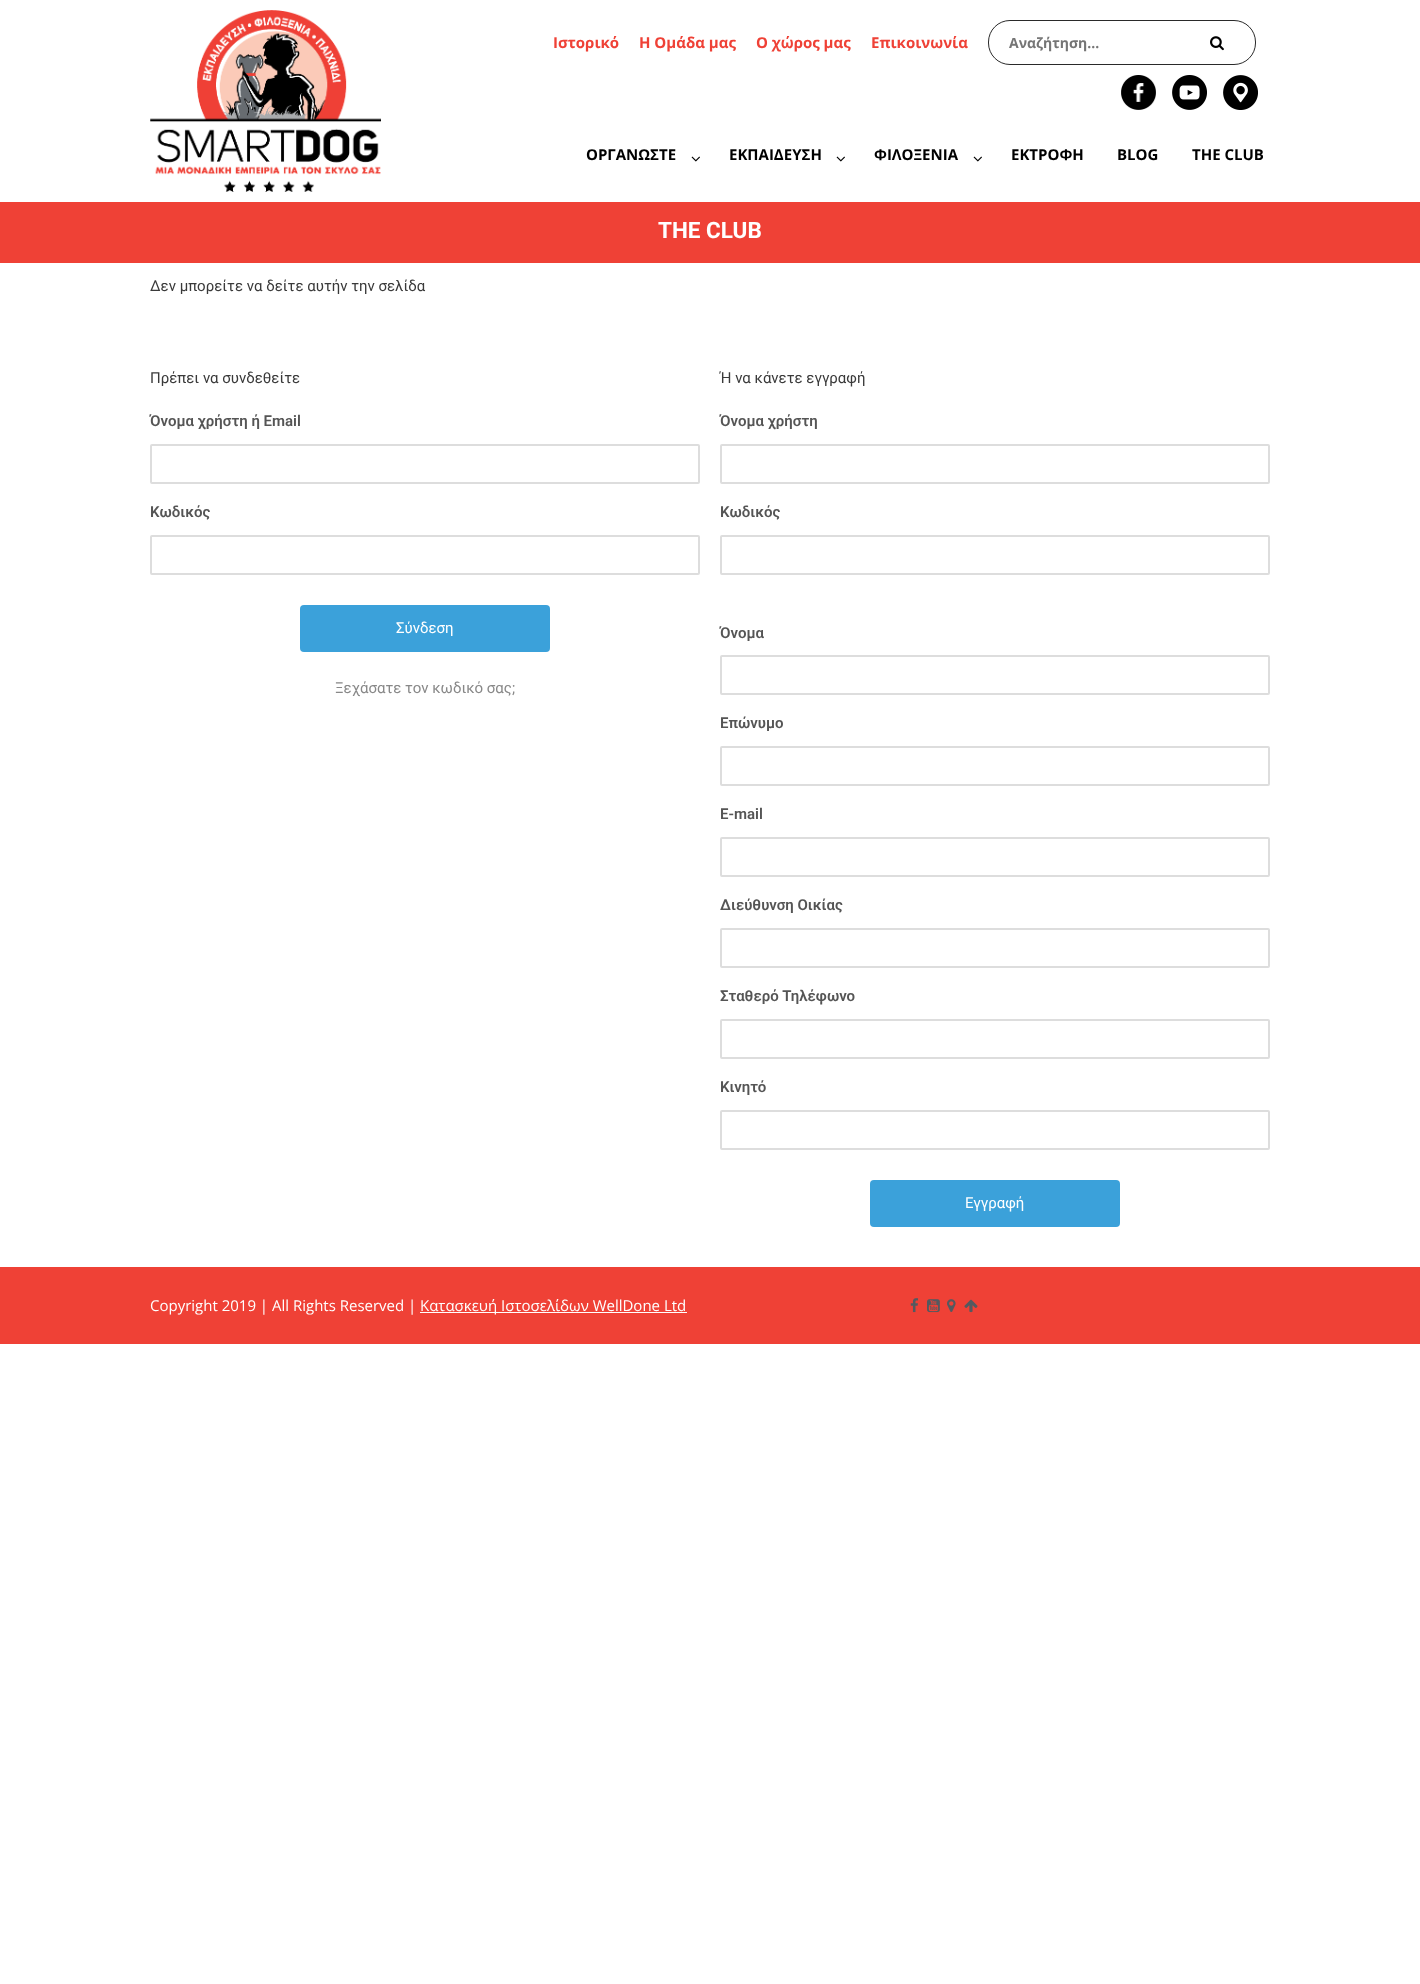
<!DOCTYPE html>
<meta charset="utf-8">
<style>body { margin: 0 } canvas { display: block }</style>
<canvas id="canvas" width="1420" height="1984"></canvas>
<img id="img1" src="images/1.png" hidden>
<img id="img2" src="images/2.png" hidden>
<img id="img3" src="images/3.png" hidden>
<img id="img4" src="images/4.png" hidden>
<img id="img5" src="images/5.png" hidden>
<img id="img6" src="images/6.png" hidden>
<img id="img7" src="images/7.png" hidden>
<img id="img8" src="images/8.png" hidden>
<img id="img9" src="images/9.png" hidden>
<img id="img10" src="images/10.png" hidden>
<script>
window.onload = function () {
    const canvas = document.getElementById('canvas');
    const context = canvas.getContext('2d');
    context.miterLimit = 4;
    context.fontKerning = 'normal';

    context.fillStyle = 'rgb(255, 255, 255)';
    context.fillRect(0, 0, 1420, 1984);
    context.drawImage(document.getElementById('img1'), 150, 10, 231, 182);
    context.beginPath();
    context.roundRect(988.5, 20.5, 267, 44, 21.5);
    context.strokeStyle = 'rgb(42, 42, 42)';
    context.stroke();
    context.drawImage(document.getElementById('img2'), 1210, 36, 14, 15);
    context.drawImage(document.getElementById('img3'), 1121, 75, 35, 35);
    context.drawImage(document.getElementById('img4'), 1172, 75, 35, 35);
    context.drawImage(document.getElementById('img5'), 1223, 75, 35, 35);
    context.drawImage(document.getElementById('img6'), 691, 156, 9, 6);
    context.drawImage(document.getElementById('img6'), 836, 156, 9, 6);
    context.drawImage(document.getElementById('img6'), 973, 156, 9, 6);
    context.fillStyle = 'rgb(239, 65, 54)';
    context.fillRect(0, 202, 1420, 61);
    context.beginPath();
    context.roundRect(151, 445, 548, 38, 1);
    context.strokeStyle = 'rgb(221, 221, 221)';
    context.lineWidth = 2;
    context.stroke();
    context.beginPath();
    context.roundRect(151, 536, 548, 38, 1);
    context.stroke();
    context.fillStyle = 'rgb(59, 161, 218)';
    context.beginPath();
    context.roundRect(300, 605, 250, 47, 4);
    context.fill();
    context.beginPath();
    context.roundRect(721, 445, 548, 38, 1);
    context.stroke();
    context.beginPath();
    context.roundRect(721, 536, 548, 38, 1);
    context.stroke();
    context.beginPath();
    context.roundRect(721, 656, 548, 38, 1);
    context.stroke();
    context.beginPath();
    context.roundRect(721, 747, 548, 38, 1);
    context.stroke();
    context.beginPath();
    context.roundRect(721, 838, 548, 38, 1);
    context.stroke();
    context.beginPath();
    context.roundRect(721, 929, 548, 38, 1);
    context.stroke();
    context.beginPath();
    context.roundRect(721, 1020, 548, 38, 1);
    context.stroke();
    context.beginPath();
    context.roundRect(721, 1111, 548, 38, 1);
    context.stroke();
    context.beginPath();
    context.roundRect(870, 1180, 250, 47, 4);
    context.fill();
    context.fillStyle = 'rgb(239, 65, 54)';
    context.fillRect(0, 1267, 1420, 77);
    context.fillStyle = 'rgb(255, 255, 255)';
    context.fillRect(420, 1312, 267, 1);
    context.drawImage(document.getElementById('img7'), 910, 1298, 9, 15);
    context.drawImage(document.getElementById('img8'), 927, 1299, 13, 14);
    context.drawImage(document.getElementById('img9'), 947, 1299, 9, 13);
    context.drawImage(document.getElementById('img10'), 964, 1299, 14, 14);
    context.font = 'bold 15px Open Sans';
    context.fillStyle = 'rgb(239, 65, 54)';
    context.fillText('Ιστορικό', 553, 48);
    context.fillText('Η Ομάδα μας', 639, 48);
    context.fillText('Ο χώρος μας', 756, 48);
    context.fillText('Επικοινωνία', 871, 48);
    context.font = 'bold 14px Open Sans';
    context.fillStyle = 'rgb(117, 117, 117)';
    context.fillText('Αναζήτηση...', 1009, 48);
    context.font = 'bold 15px Open Sans';
    context.fillStyle = 'rgb(0, 0, 0)';
    context.fillText('ΟΡΓΑΝΩΣΤΕ', 586, 160);
    context.fillText('ΕΚΠΑΙΔΕΥΣΗ', 729, 160);
    context.fillText('ΦΙΛΟΞΕΝΙΑ', 874, 160);
    context.fillText('ΕΚΤΡΟΦΗ', 1011, 160);
    context.fillText('BLOG', 1117, 160);
    context.fillText('THE CLUB', 1192, 160);
    context.font = 'bold 22.5px Roboto';
    context.fillStyle = 'rgb(255, 255, 255)';
    context.fillText('THE CLUB', 658, 238);
    context.font = '15px Roboto';
    context.fillStyle = 'rgb(58, 58, 58)';
    context.fillText('Δεν μπορείτε να δείτε αυτήν την σελίδα', 150, 291);
    context.fillText('Πρέπει να συνδεθείτε', 150, 383);
    context.font = '600 15px Roboto';
    context.fillStyle = 'rgb(85, 85, 85)';
    context.fillText('Όνομα χρήστη ή Email', 150, 426);
    context.fillText('Κωδικός', 150, 517);
    context.font = '15px Roboto';
    context.fillStyle = 'rgb(255, 255, 255)';
    context.fillText('Σύνδεση', 396, 633);
    context.fillStyle = 'rgb(136, 136, 136)';
    context.fillText('Ξεχάσατε τον κωδικό σας;', 335, 693);
    context.fillStyle = 'rgb(58, 58, 58)';
    context.fillText('Ή να κάνετε εγγραφή', 720, 383);
    context.font = '600 15px Roboto';
    context.fillStyle = 'rgb(85, 85, 85)';
    context.fillText('Όνομα χρήστη', 720, 426);
    context.fillText('Κωδικός', 720, 517);
    context.fillText('Όνομα', 720, 638);
    context.fillText('Επώνυμο', 720, 728);
    context.fillText('E-mail', 720, 819);
    context.fillText('Διεύθυνση Οικίας', 720, 910);
    context.fillText('Σταθερό Τηλέφωνο', 720, 1001);
    context.fillText('Κινητό', 720, 1092);
    context.font = '15px Roboto';
    context.fillStyle = 'rgb(255, 255, 255)';
    context.fillText('Εγγραφή', 965, 1208);
    context.font = '15px Open Sans';
    context.fillText('Copyright 2019 | All Rights Reserved |', 150, 1311);
    context.fillText('Κατασκευή Ιστοσελίδων WellDone Ltd', 420, 1311);
};
</script>
